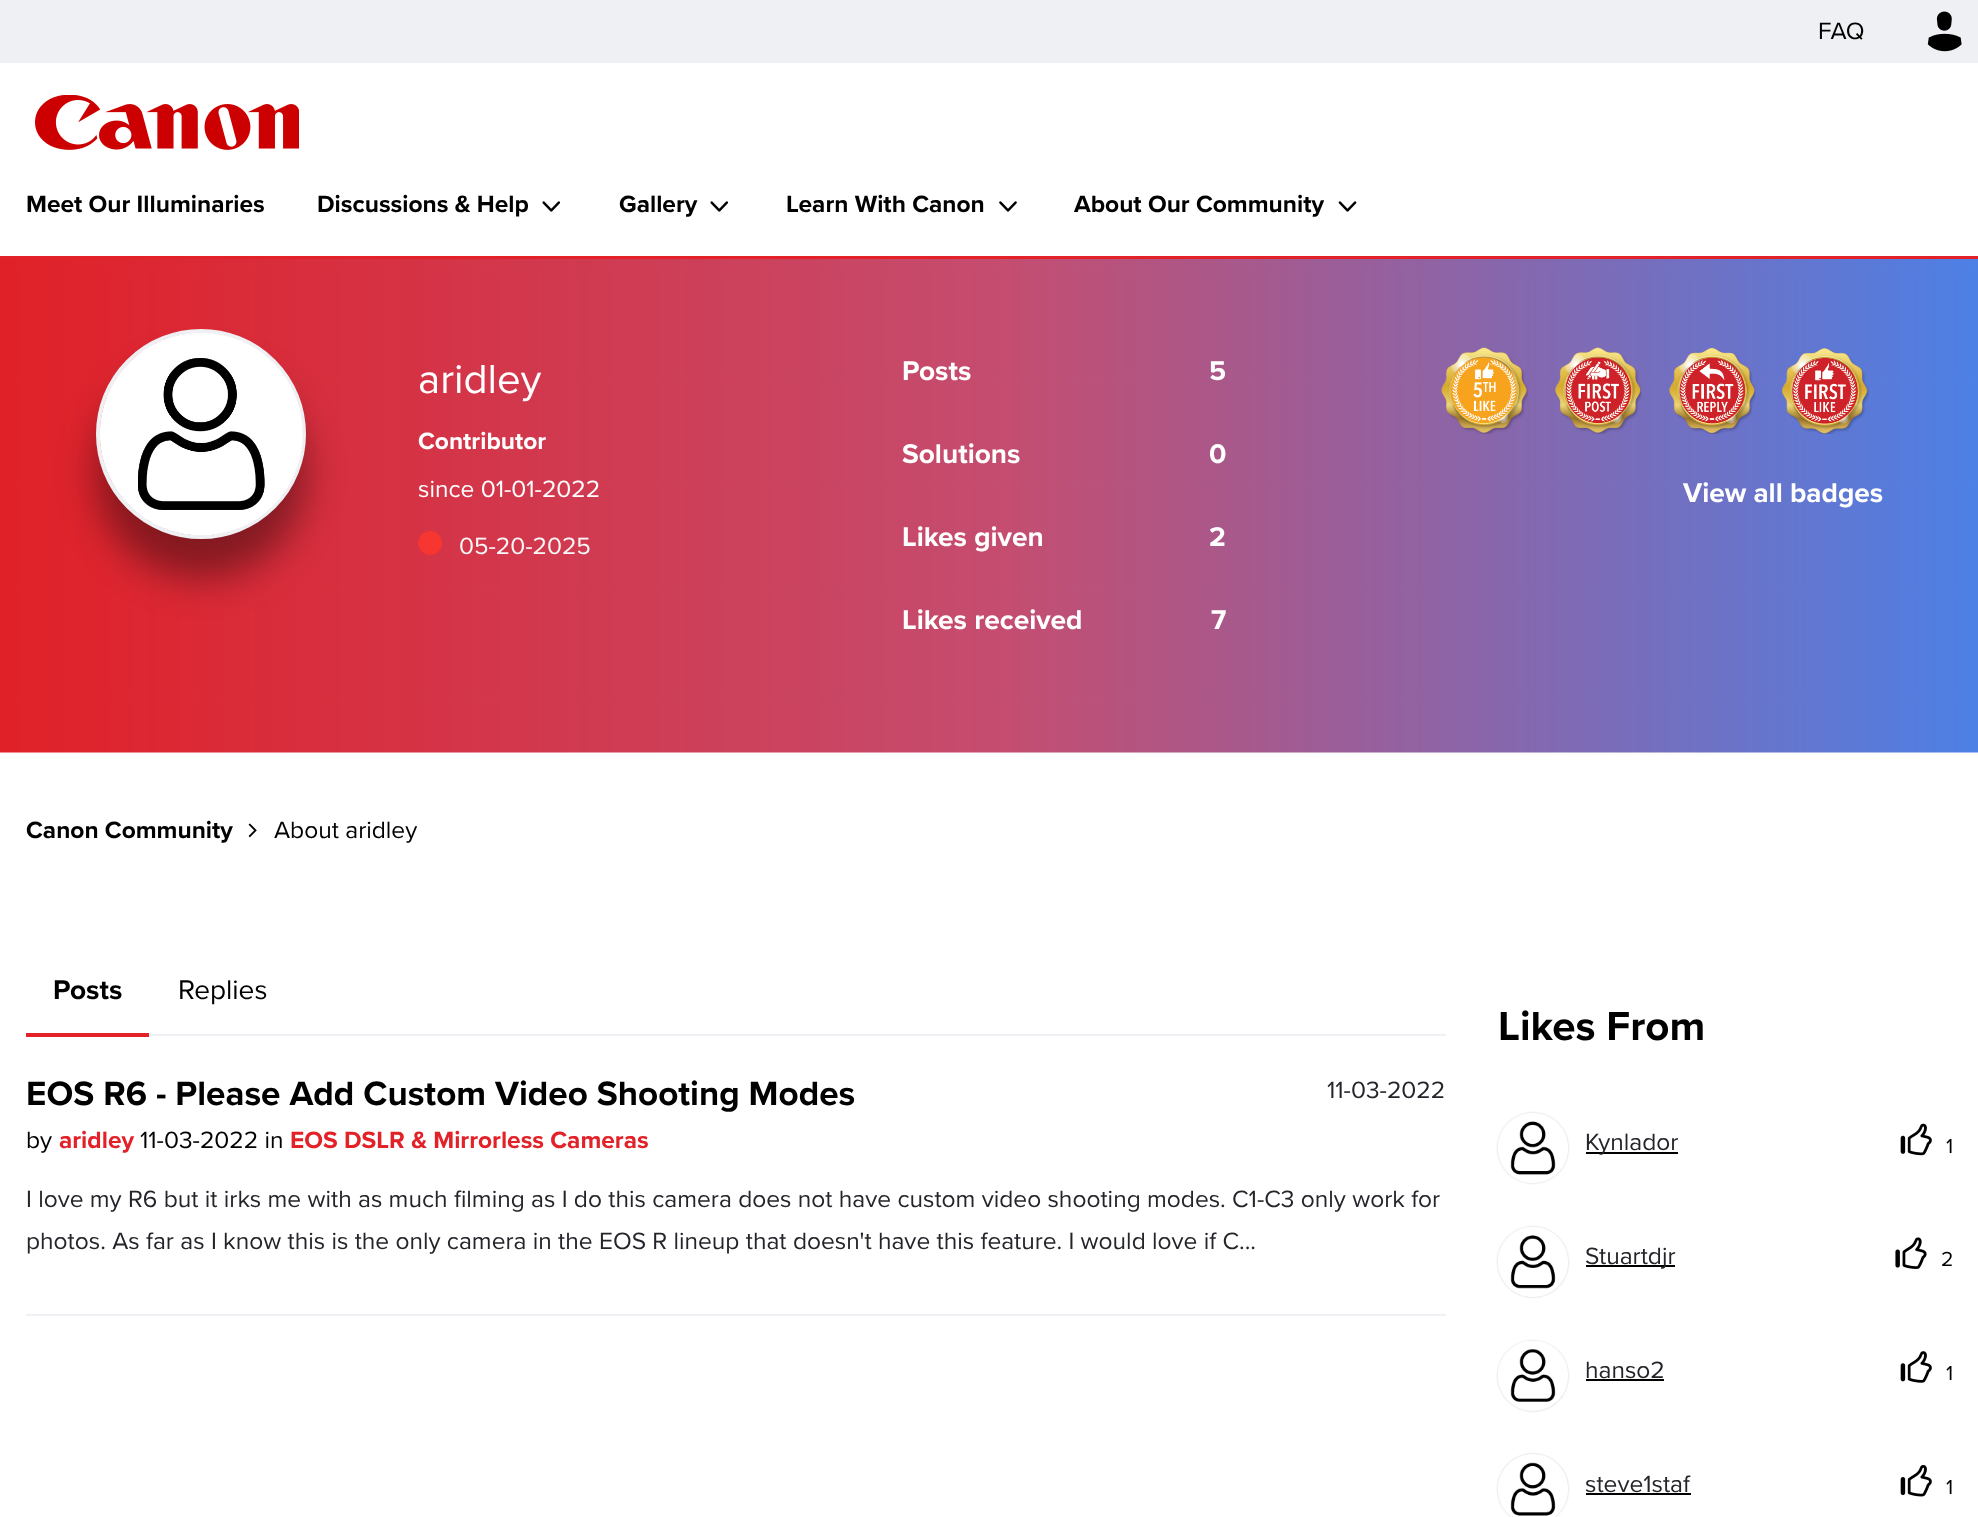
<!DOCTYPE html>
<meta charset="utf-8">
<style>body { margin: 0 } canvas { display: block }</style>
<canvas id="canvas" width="1978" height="1517"></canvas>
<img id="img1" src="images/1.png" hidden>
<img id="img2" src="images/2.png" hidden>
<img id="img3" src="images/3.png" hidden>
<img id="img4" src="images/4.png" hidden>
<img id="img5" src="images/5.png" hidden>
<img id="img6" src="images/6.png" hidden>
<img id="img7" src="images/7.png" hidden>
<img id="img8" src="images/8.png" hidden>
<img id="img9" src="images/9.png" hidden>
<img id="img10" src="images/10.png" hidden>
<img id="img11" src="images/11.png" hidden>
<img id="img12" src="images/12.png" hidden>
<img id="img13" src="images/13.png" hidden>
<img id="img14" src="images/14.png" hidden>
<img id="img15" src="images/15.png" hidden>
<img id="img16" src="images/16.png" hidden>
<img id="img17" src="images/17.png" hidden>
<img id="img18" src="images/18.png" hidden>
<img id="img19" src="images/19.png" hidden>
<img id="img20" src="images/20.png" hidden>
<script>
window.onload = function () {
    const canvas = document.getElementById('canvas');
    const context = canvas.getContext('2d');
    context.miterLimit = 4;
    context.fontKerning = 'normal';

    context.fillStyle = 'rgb(255, 255, 255)';
    context.fillRect(0, 0, 1978, 1517);
    context.fillStyle = 'rgb(239, 240, 243)';
    context.fillRect(0, 0, 1978, 63);
    context.drawImage(document.getElementById('img1'), 1927, 11, 35, 41);
    context.drawImage(document.getElementById('img2'), 35, 95, 264, 55);
    context.fillStyle = 'rgb(226, 33, 40)';
    context.fillRect(0, 256, 1978, 3);
    context.drawImage(document.getElementById('img3'), 542, 201, 19, 11);
    context.drawImage(document.getElementById('img3'), 710, 201, 19, 11);
    context.drawImage(document.getElementById('img4'), 999, 201, 18, 11);
    context.drawImage(document.getElementById('img5'), 1338, 201, 19, 11);
    context.drawImage(document.getElementById('img6'), 0, 259, 1978, 494);
    context.fillStyle = 'rgba(0, 0, 0, 0.4)';
    context.filter = 'blur(19px)';
    context.beginPath();
    context.roundRect(96, 368, 210, 210, 105);
    context.fill();
    context.filter = 'none';
    context.beginPath();
    context.arc(201, 434, 103, 0, 2 * Math.PI);
    context.strokeStyle = 'rgb(239, 240, 243)';
    context.lineWidth = 4;
    context.stroke();
    context.drawImage(document.getElementById('img7'), 100, 333, 203, 202);
    context.fillStyle = 'rgb(247, 54, 49)';
    context.beginPath();
    context.moveTo(440.5, 537);
    context.bezierCurveTo(448.5, 550.5, 428, 562.5, 420, 549);
    context.bezierCurveTo(412, 535.5, 432.5, 523.5, 440.5, 537);
    context.closePath();
    context.fill();
    context.drawImage(document.getElementById('img8'), 1441, 347, 87, 87);
    context.drawImage(document.getElementById('img9'), 1555, 347, 87, 87);
    context.drawImage(document.getElementById('img10'), 1669, 347, 87, 87);
    context.drawImage(document.getElementById('img11'), 1782, 348, 87, 86);
    context.drawImage(document.getElementById('img12'), 248, 823, 9, 15);
    context.fillStyle = 'rgb(239, 240, 243)';
    context.fillRect(149, 1034, 1297, 2);
    context.fillStyle = 'rgb(226, 33, 40)';
    context.fillRect(26, 1033, 123, 4);
    context.fillStyle = 'rgb(239, 240, 243)';
    context.fillRect(26, 1314, 1420, 2);
    context.save();
    context.beginPath();
    context.moveTo(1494, 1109);
    context.lineTo(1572, 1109);
    context.lineTo(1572, 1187);
    context.lineTo(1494, 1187);
    context.closePath();
    context.moveTo(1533, 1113);
    context.bezierCurveTo(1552.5, 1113, 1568, 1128.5, 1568, 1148);
    context.bezierCurveTo(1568, 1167.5, 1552.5, 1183, 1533, 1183);
    context.bezierCurveTo(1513.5, 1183, 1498, 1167.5, 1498, 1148);
    context.bezierCurveTo(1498, 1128.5, 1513.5, 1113, 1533, 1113);
    context.closePath();
    context.clip('evenodd');
    context.fillStyle = 'rgb(196, 196, 196)';
    context.filter = 'blur(1px)';
    context.beginPath();
    context.roundRect(1498, 1113, 70, 70, 35);
    context.fill();
    context.filter = 'none';
    context.restore();
    context.drawImage(document.getElementById('img13'), 1498, 1113, 70, 70);
    context.fillStyle = 'rgb(0, 0, 0)';
    context.fillRect(1586, 1152, 92, 2);
    context.drawImage(document.getElementById('img14'), 1900, 1123, 32, 33);
    context.save();
    context.beginPath();
    context.moveTo(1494, 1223);
    context.lineTo(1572, 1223);
    context.lineTo(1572, 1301);
    context.lineTo(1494, 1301);
    context.closePath();
    context.moveTo(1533, 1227);
    context.bezierCurveTo(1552.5, 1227, 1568, 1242.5, 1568, 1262);
    context.bezierCurveTo(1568, 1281.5, 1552.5, 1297, 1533, 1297);
    context.bezierCurveTo(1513.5, 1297, 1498, 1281.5, 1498, 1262);
    context.bezierCurveTo(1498, 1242.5, 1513.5, 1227, 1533, 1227);
    context.closePath();
    context.clip('evenodd');
    context.fillStyle = 'rgb(196, 196, 196)';
    context.filter = 'blur(1px)';
    context.beginPath();
    context.roundRect(1498, 1227, 70, 70, 35);
    context.fill();
    context.filter = 'none';
    context.restore();
    context.drawImage(document.getElementById('img15'), 1498, 1227, 70, 70);
    context.fillRect(1586, 1265, 89, 2);
    context.drawImage(document.getElementById('img16'), 1895, 1237, 32, 32);
    context.save();
    context.beginPath();
    context.moveTo(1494, 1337);
    context.lineTo(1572, 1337);
    context.lineTo(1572, 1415);
    context.lineTo(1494, 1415);
    context.closePath();
    context.moveTo(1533, 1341);
    context.bezierCurveTo(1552.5, 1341, 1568, 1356.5, 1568, 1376);
    context.bezierCurveTo(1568, 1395.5, 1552.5, 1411, 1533, 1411);
    context.bezierCurveTo(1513.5, 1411, 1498, 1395.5, 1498, 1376);
    context.bezierCurveTo(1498, 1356.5, 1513.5, 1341, 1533, 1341);
    context.closePath();
    context.clip('evenodd');
    context.fillStyle = 'rgb(196, 196, 196)';
    context.filter = 'blur(1px)';
    context.beginPath();
    context.roundRect(1498, 1341, 70, 70, 35);
    context.fill();
    context.filter = 'none';
    context.restore();
    context.drawImage(document.getElementById('img17'), 1498, 1341, 70, 70);
    context.fillRect(1586, 1379, 78, 2);
    context.drawImage(document.getElementById('img18'), 1900, 1351, 32, 32);
    context.save();
    context.beginPath();
    context.moveTo(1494, 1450);
    context.lineTo(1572, 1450);
    context.lineTo(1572, 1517);
    context.lineTo(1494, 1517);
    context.closePath();
    context.moveTo(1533, 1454);
    context.bezierCurveTo(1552.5, 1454, 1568, 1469.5, 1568, 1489);
    context.bezierCurveTo(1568, 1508.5, 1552.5, 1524, 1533, 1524);
    context.bezierCurveTo(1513.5, 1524, 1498, 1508.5, 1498, 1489);
    context.bezierCurveTo(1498, 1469.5, 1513.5, 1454, 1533, 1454);
    context.closePath();
    context.clip('evenodd');
    context.fillStyle = 'rgb(196, 196, 196)';
    context.filter = 'blur(1px)';
    context.beginPath();
    context.roundRect(1498, 1454, 70, 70, 35);
    context.fill();
    context.filter = 'none';
    context.restore();
    context.drawImage(document.getElementById('img19'), 1498, 1454, 70, 63);
    context.fillRect(1586, 1493, 105, 2);
    context.drawImage(document.getElementById('img20'), 1900, 1465, 32, 32);
    context.font = '24.5px Proxima Nova';
    context.fillText('FAQ', 1818, 39);
    context.font = 'bold 24.5px Proxima Nova';
    context.fillText('Meet Our Illuminaries', 26, 212);
    context.fillText('Discussions & Help', 317, 212);
    context.fillText('Gallery', 619, 212);
    context.fillText('Learn With Canon', 786, 212);
    context.fillText('About Our Community', 1074, 212);
    context.font = '42px Proxima Nova';
    context.fillStyle = 'rgb(255, 255, 255)';
    context.fillText('aridley', 418, 393);
    context.save();
    context.beginPath();
    context.rect(418, 422, 128, 42);
    context.clip();
    context.font = 'bold 24.5px Proxima Nova';
    context.fillText('Contributor', 418, 449);
    context.restore();
    context.font = '24.5px Proxima Nova';
    context.fillText('since 01-01-2022', 418, 497);
    context.fillStyle = 'rgb(248, 248, 248)';
    context.fillText('05-20-2025', 459, 554);
    context.font = 'bold 28px Proxima Nova';
    context.fillStyle = 'rgb(255, 255, 255)';
    context.fillText('Posts', 902, 380);
    context.fillText('5', 1209, 380);
    context.fillText('Solutions', 902, 463);
    context.fillText('0', 1209, 463);
    context.fillText('Likes given', 902, 546);
    context.fillText('2', 1209, 546);
    context.fillText('Likes received', 902, 629);
    context.fillText('7', 1211, 629);
    context.fillText('View all badges', 1683, 502);
    context.font = 'bold 24.5px Proxima Nova';
    context.fillStyle = 'rgb(0, 0, 0)';
    context.fillText('Canon Community', 26, 838);
    context.font = '24.5px Proxima Nova';
    context.fillText('About aridley', 274, 838);
    context.font = 'bold 28px Proxima Nova';
    context.fillText('Posts', 53, 999);
    context.font = '28px Proxima Nova';
    context.fillText('Replies', 178, 999);
    context.font = 'bold 35px Proxima Nova';
    context.fillText('EOS R6 - Please Add Custom Video Shooting Modes', 26, 1105);
    context.font = '24.5px Proxima Nova';
    context.fillText('by', 26, 1148);
    context.font = 'bold 24.5px Proxima Nova';
    context.fillStyle = 'rgb(226, 33, 40)';
    context.fillText('aridley', 59, 1148);
    context.font = '24.5px Proxima Nova';
    context.fillStyle = 'rgb(0, 0, 0)';
    context.fillText('11-03-2022 in', 140, 1148);
    context.font = 'bold 24.5px Proxima Nova';
    context.fillStyle = 'rgb(226, 33, 40)';
    context.fillText('EOS DSLR & Mirrorless Cameras', 290, 1148);
    context.font = '24.5px Proxima Nova';
    context.fillStyle = 'rgb(36, 37, 42)';
    context.fillText('11-03-2022', 1327, 1098);
    context.fillText('I love my R6 but it irks me with as much filming as I do this camera does not have custom video shooting modes. C1-C3 only work for', 26, 1207);
    context.fillText('photos. As far as I know this is the only camera in the EOS R lineup that doesn\'t have this feature. I would love if C...', 26, 1249);
    context.font = 'bold 42px Proxima Nova';
    context.fillStyle = 'rgb(0, 0, 0)';
    context.fillText('Likes From', 1498, 1040);
    context.font = '24.5px Proxima Nova';
    context.fillStyle = 'rgb(36, 37, 42)';
    context.fillText('Kynlador', 1585, 1150);
    context.font = '21px Proxima Nova';
    context.fillStyle = 'rgb(0, 0, 0)';
    context.fillText('1', 1946, 1153);
    context.font = '24.5px Proxima Nova';
    context.fillStyle = 'rgb(36, 37, 42)';
    context.fillText('Stuartdjr', 1585, 1264);
    context.font = '21px Proxima Nova';
    context.fillStyle = 'rgb(0, 0, 0)';
    context.fillText('2', 1941, 1266);
    context.font = '24.5px Proxima Nova';
    context.fillStyle = 'rgb(36, 37, 42)';
    context.fillText('hanso2', 1585, 1378);
    context.font = '21px Proxima Nova';
    context.fillStyle = 'rgb(0, 0, 0)';
    context.fillText('1', 1946, 1380);
    context.font = '24.5px Proxima Nova';
    context.fillStyle = 'rgb(36, 37, 42)';
    context.fillText('steve1staf', 1585, 1492);
    context.font = '21px Proxima Nova';
    context.fillStyle = 'rgb(0, 0, 0)';
    context.fillText('1', 1946, 1494);
};
</script>
